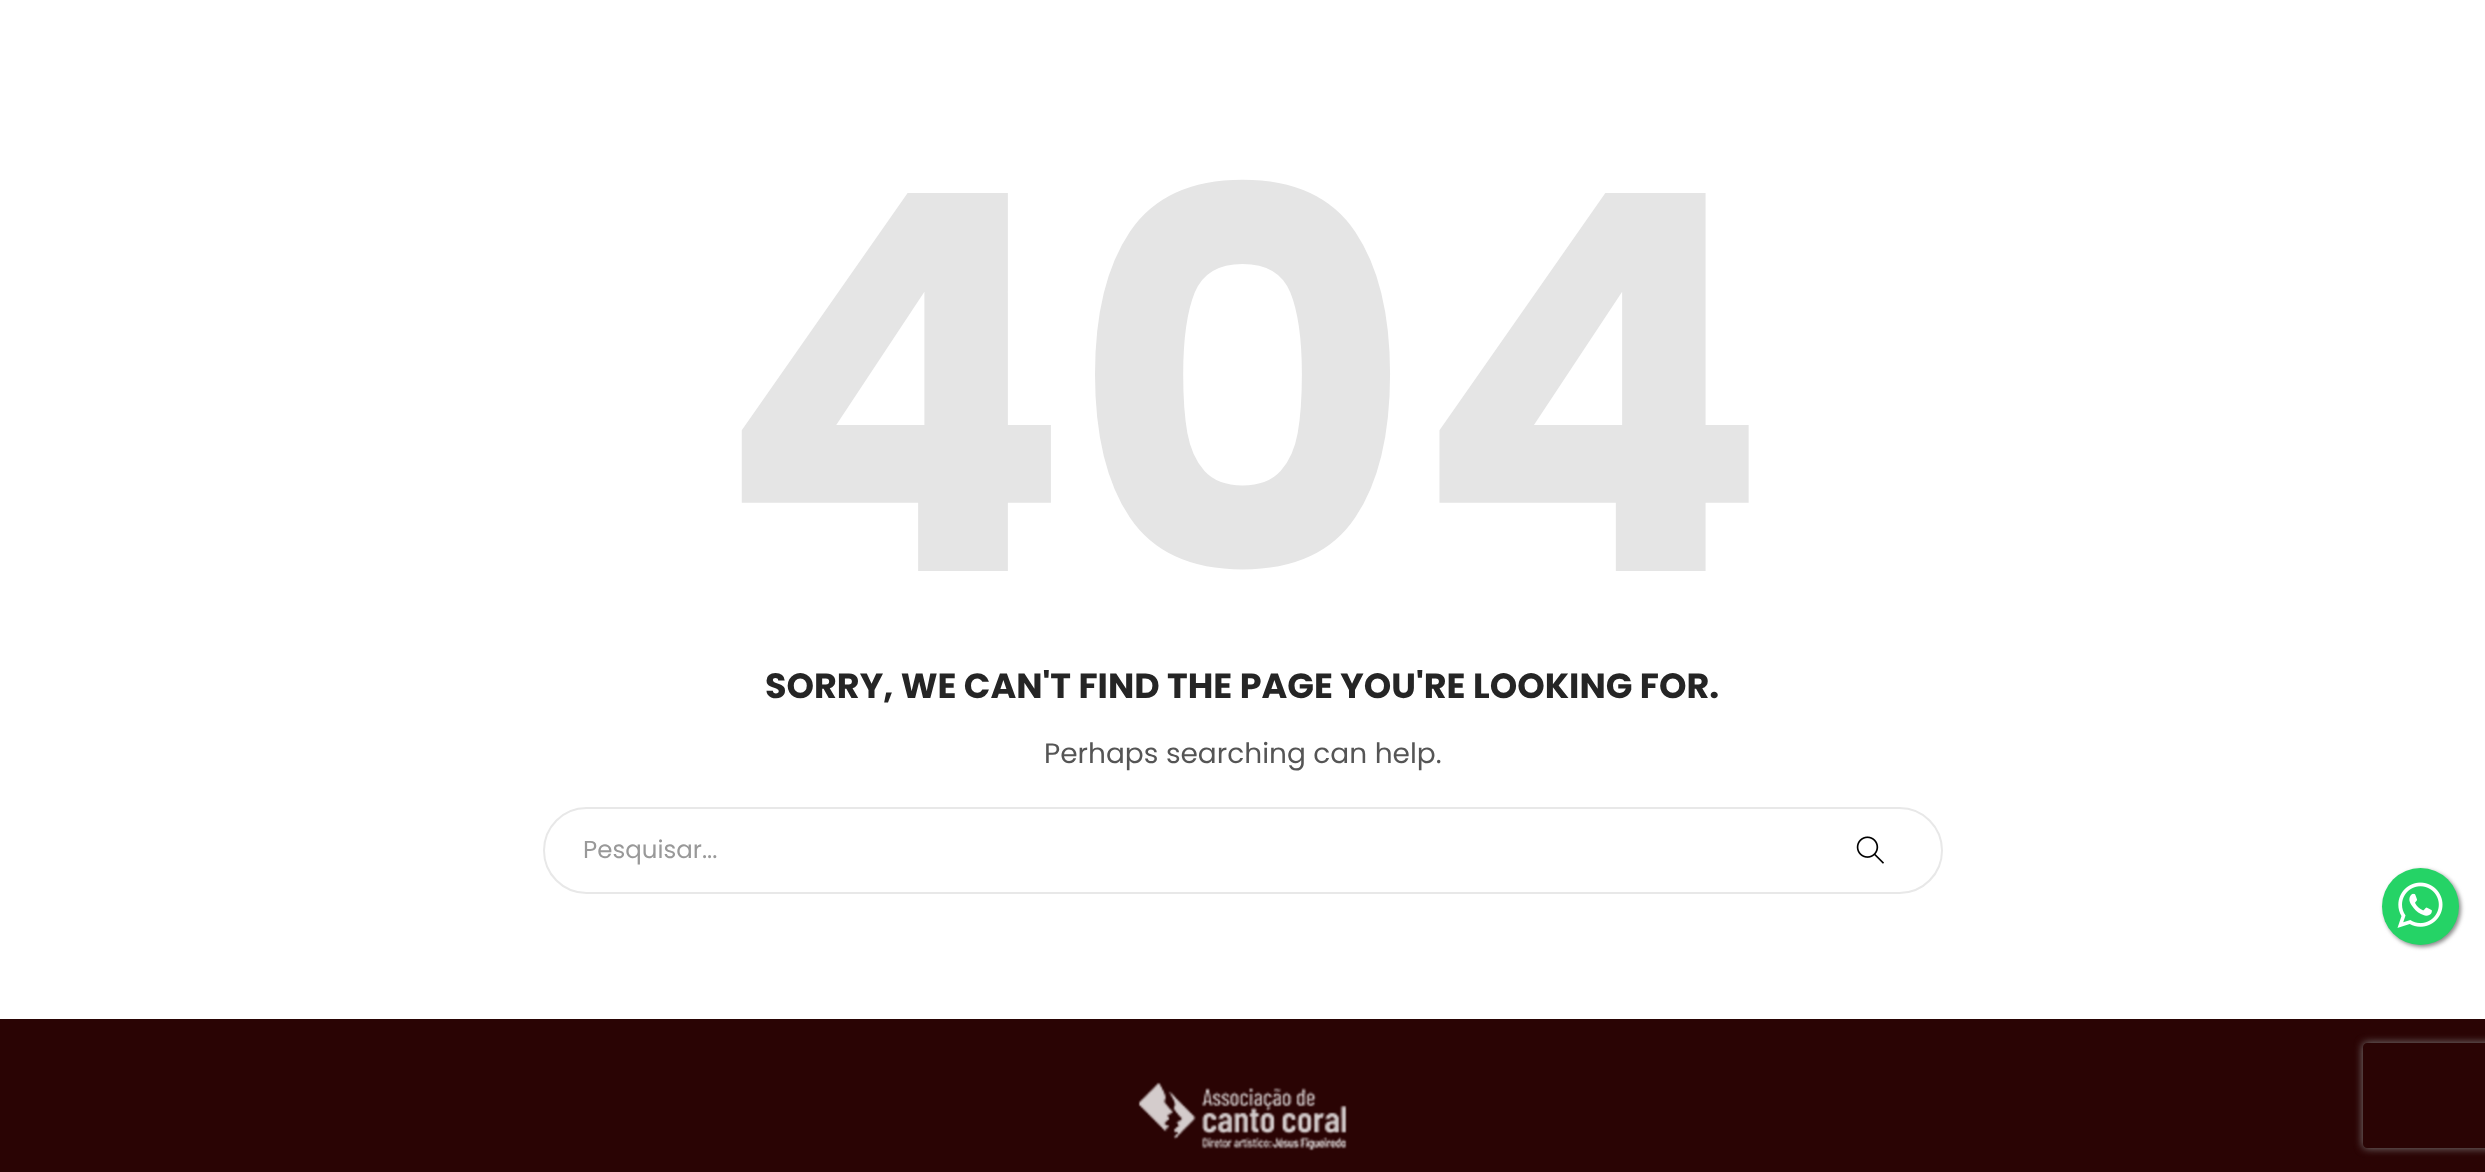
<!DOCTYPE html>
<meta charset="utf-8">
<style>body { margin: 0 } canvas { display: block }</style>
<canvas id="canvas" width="2485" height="1172"></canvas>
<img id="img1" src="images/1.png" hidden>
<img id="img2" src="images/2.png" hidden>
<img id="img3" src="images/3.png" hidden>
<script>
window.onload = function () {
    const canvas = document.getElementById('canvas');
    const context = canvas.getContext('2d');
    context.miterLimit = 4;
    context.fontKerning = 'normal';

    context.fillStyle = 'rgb(255, 255, 255)';
    context.fillRect(0, 0, 2485, 1172);
    context.beginPath();
    context.roundRect(544, 808, 1398, 85, 42.5);
    context.strokeStyle = 'rgb(232, 232, 232)';
    context.lineWidth = 2;
    context.stroke();
    context.drawImage(document.getElementById('img1'), 1856, 836, 28, 28);
    context.fillStyle = 'rgb(136, 136, 136)';
    context.filter = 'blur(2px)';
    context.beginPath();
    context.roundRect(2384, 870, 77, 77, 38.5);
    context.fill();
    context.filter = 'none';
    context.fillStyle = 'rgb(37, 211, 102)';
    context.beginPath();
    context.arc(2420.5, 906.5, 38.5, 0, 2 * Math.PI);
    context.fill();
    context.drawImage(document.getElementById('img2'), 2397, 882, 46, 46);
    context.fillStyle = 'rgb(42, 4, 4)';
    context.fillRect(0, 1019, 2485, 153);
    context.drawImage(document.getElementById('img3'), 1138, 1082, 209, 69);
    context.save();
    context.beginPath();
    context.moveTo(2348, 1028);
    context.lineTo(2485, 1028);
    context.lineTo(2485, 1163);
    context.lineTo(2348, 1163);
    context.closePath();
    context.moveTo(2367, 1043);
    context.lineTo(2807, 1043);
    context.bezierCurveTo(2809, 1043, 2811, 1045, 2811, 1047);
    context.lineTo(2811, 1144);
    context.bezierCurveTo(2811, 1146, 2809, 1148, 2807, 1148);
    context.lineTo(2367, 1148);
    context.bezierCurveTo(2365, 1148, 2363, 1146, 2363, 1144);
    context.lineTo(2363, 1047);
    context.bezierCurveTo(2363, 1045, 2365, 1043, 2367, 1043);
    context.closePath();
    context.clip('evenodd');
    context.fillStyle = 'rgb(128, 128, 128)';
    context.filter = 'blur(4.5px)';
    context.beginPath();
    context.roundRect(2363, 1043, 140, 105, 4);
    context.fill();
    context.filter = 'none';
    context.restore();
    context.font = 'bold 525px Poppins';
    context.fillStyle = 'rgb(229, 229, 229)';
    context.fillText('404', 716, 571);
    context.font = 'bold 35px Poppins';
    context.fillStyle = 'rgb(37, 37, 37)';
    context.fillText('SORRY, WE CAN\'T FIND THE PAGE YOU\'RE LOOKING FOR.', 765, 698);
    context.font = '28px Poppins';
    context.fillStyle = 'rgb(85, 85, 85)';
    context.fillText('Perhaps searching can help.', 1044, 763);
    context.font = '24.5px Poppins';
    context.fillStyle = 'rgb(153, 153, 153)';
    context.fillText('Pesquisar...', 583, 858);
};
</script>
